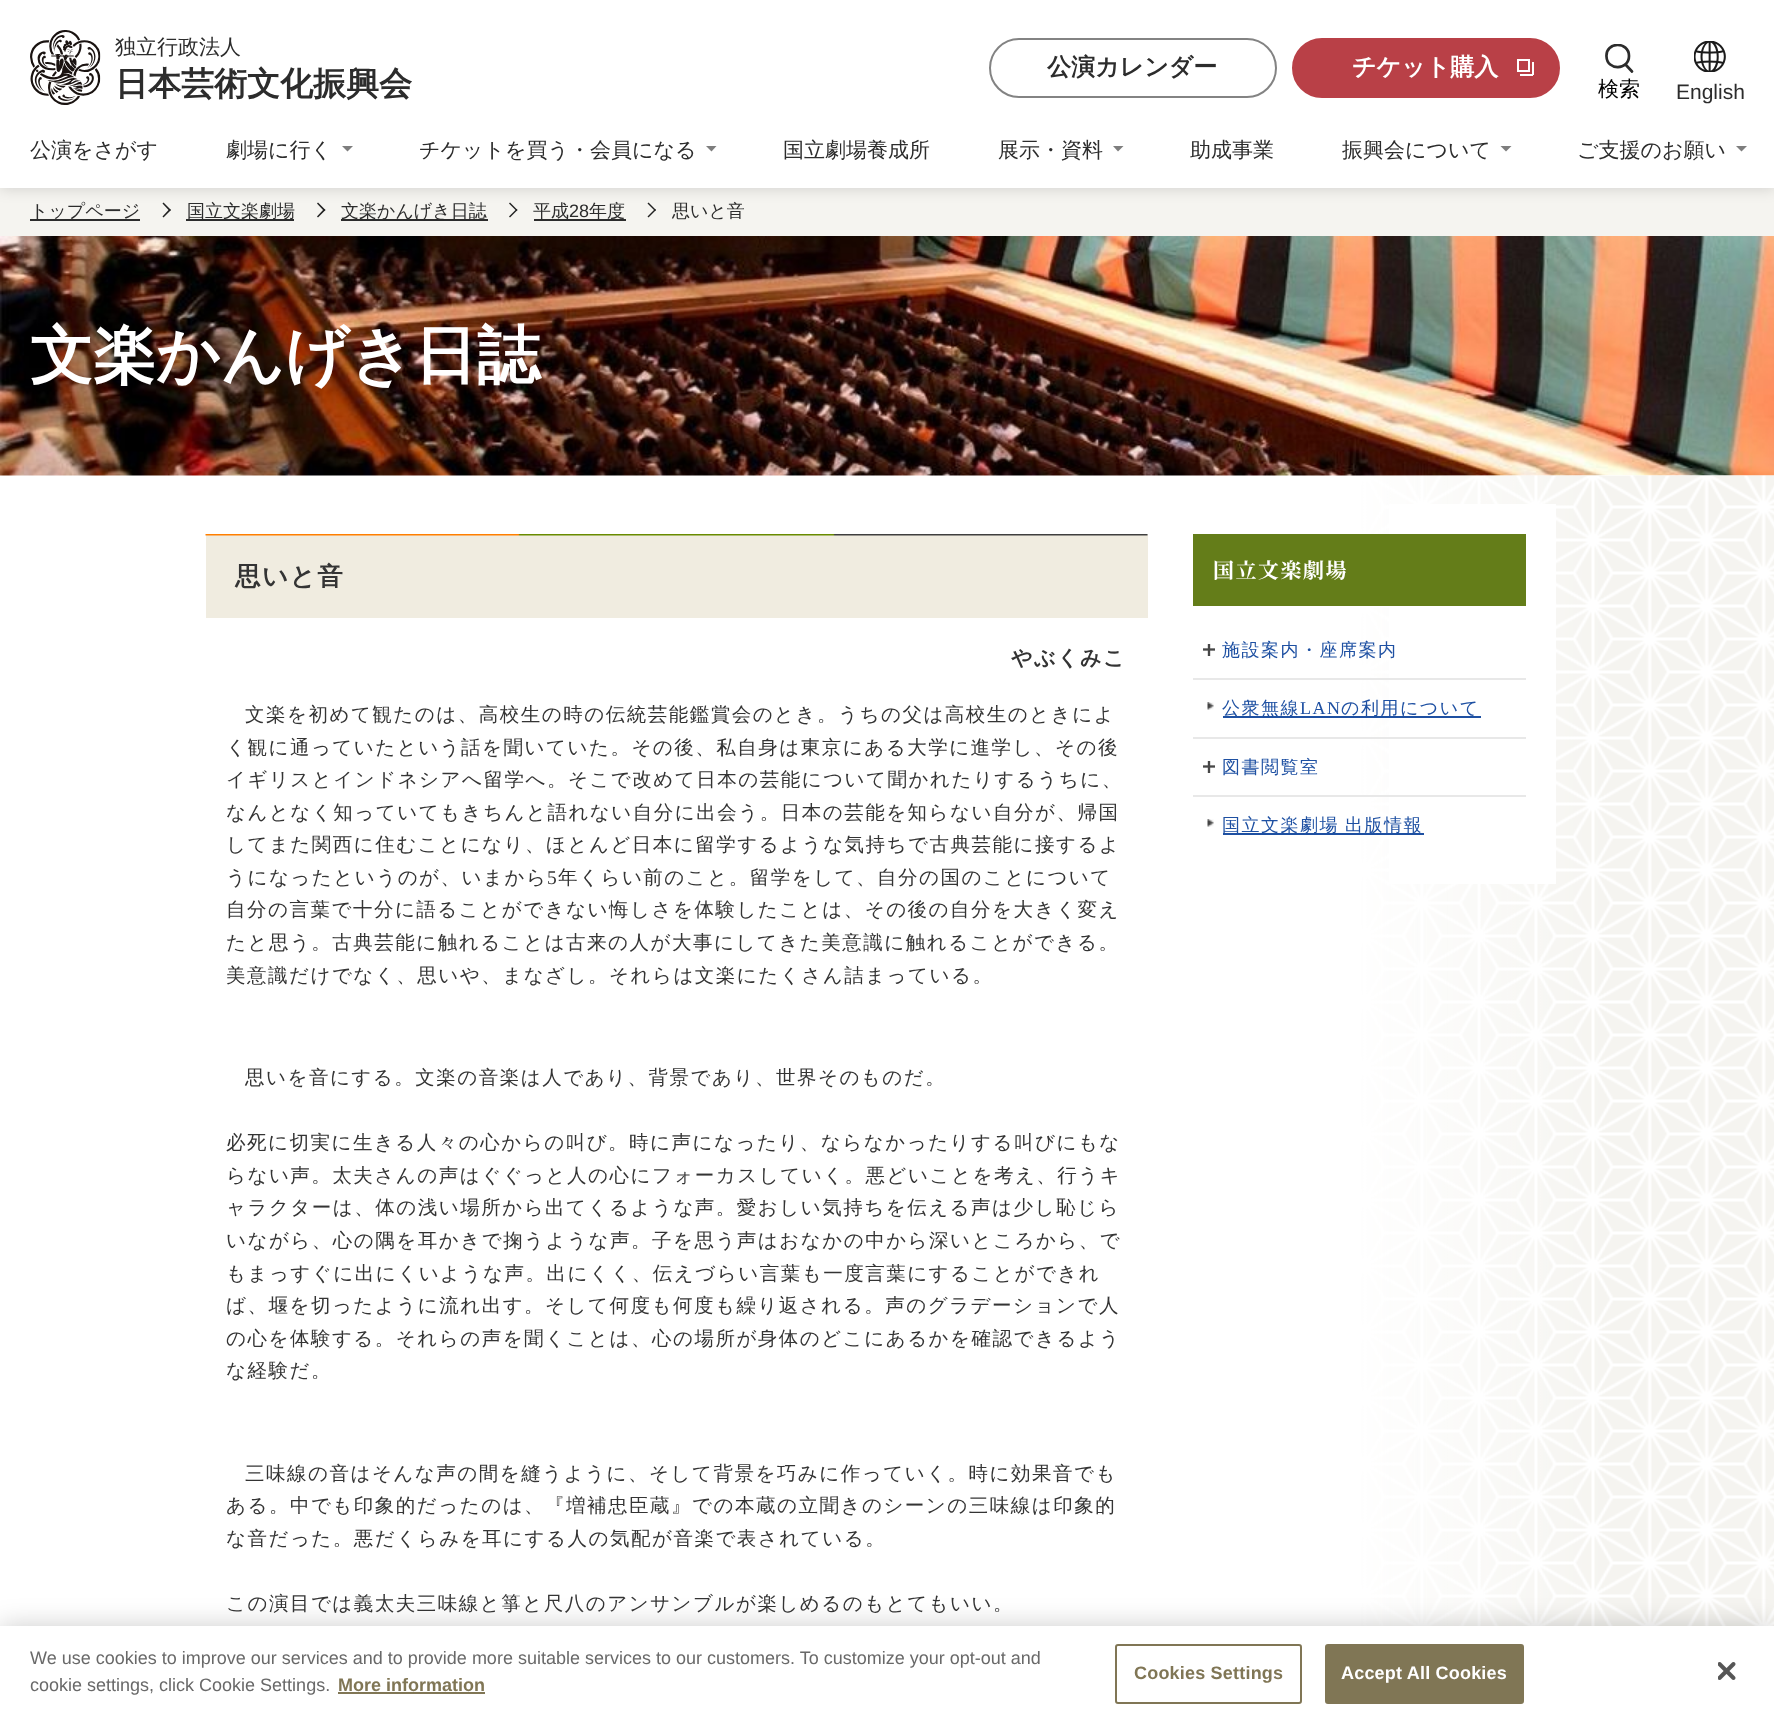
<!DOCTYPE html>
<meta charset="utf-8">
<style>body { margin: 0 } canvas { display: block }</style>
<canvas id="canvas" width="1774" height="1719"></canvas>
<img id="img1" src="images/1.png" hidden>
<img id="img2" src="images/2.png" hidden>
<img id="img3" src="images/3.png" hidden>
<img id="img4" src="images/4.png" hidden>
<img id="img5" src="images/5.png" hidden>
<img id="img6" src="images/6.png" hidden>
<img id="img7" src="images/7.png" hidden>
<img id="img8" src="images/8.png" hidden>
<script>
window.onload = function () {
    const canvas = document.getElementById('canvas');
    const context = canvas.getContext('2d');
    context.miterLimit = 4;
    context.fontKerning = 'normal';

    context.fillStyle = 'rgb(255, 255, 255)';
    context.fillRect(0, 0, 1774, 1719);
    context.fillStyle = 'rgb(245, 244, 240)';
    context.fillRect(0, 188, 1774, 48);
    context.fillStyle = 'rgb(33, 33, 33)';
    context.beginPath();
    context.moveTo(163.5, 202.5);
    context.lineTo(171, 210);
    context.lineTo(169.5, 211);
    context.lineTo(162.5, 203.5);
    context.closePath();
    context.fill();
    context.beginPath();
    context.moveTo(169.5, 209);
    context.lineTo(171, 210);
    context.lineTo(163.5, 217.5);
    context.lineTo(162.5, 216.5);
    context.closePath();
    context.fill();
    context.beginPath();
    context.moveTo(318, 202.5);
    context.lineTo(325.5, 210);
    context.lineTo(324, 211);
    context.lineTo(317, 203.5);
    context.closePath();
    context.fill();
    context.beginPath();
    context.moveTo(324, 209);
    context.lineTo(325.5, 210);
    context.lineTo(318, 217.5);
    context.lineTo(317, 216.5);
    context.closePath();
    context.fill();
    context.beginPath();
    context.moveTo(510, 202.5);
    context.lineTo(517.5, 210);
    context.lineTo(516.5, 211);
    context.lineTo(509, 203.5);
    context.closePath();
    context.fill();
    context.beginPath();
    context.moveTo(516.5, 209);
    context.lineTo(517.5, 210);
    context.lineTo(510, 217.5);
    context.lineTo(509, 216.5);
    context.closePath();
    context.fill();
    context.beginPath();
    context.moveTo(648.5, 202.5);
    context.lineTo(656, 210);
    context.lineTo(655, 211);
    context.lineTo(647.5, 203.5);
    context.closePath();
    context.fill();
    context.beginPath();
    context.moveTo(655, 209);
    context.lineTo(656, 210);
    context.lineTo(648.5, 217.5);
    context.lineTo(647.5, 216.5);
    context.closePath();
    context.fill();
    context.fillStyle = 'rgba(0, 0, 0, 0.16)';
    context.filter = 'blur(7.5px)';
    context.beginPath();
    context.rect(0, 0, 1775, 188);
    context.fill();
    context.filter = 'none';
    context.fillStyle = 'rgb(255, 255, 255)';
    context.fillRect(0, 0, 1774, 188);
    context.drawImage(document.getElementById('img1'), 30, 30, 71, 75);
    context.beginPath();
    context.roundRect(990, 39, 286, 58, 29);
    context.strokeStyle = 'rgb(131, 131, 131)';
    context.lineWidth = 2;
    context.stroke();
    context.fillStyle = 'rgb(185, 64, 71)';
    context.beginPath();
    context.roundRect(1293.5, 39.5, 265, 57, 28.5);
    context.fill();
    context.strokeStyle = 'rgb(185, 64, 71)';
    context.lineWidth = 3;
    context.stroke();
    context.strokeStyle = 'rgb(255, 255, 255)';
    context.lineWidth = 2;
    context.strokeRect(1518, 60, 11, 11);
    context.fillStyle = 'rgb(255, 255, 255)';
    context.fillRect(1532, 62, 2, 13);
    context.fillRect(1520, 74, 13, 2);
    context.save();
    context.beginPath();
    context.rect(1605, 44, 29, 30);
    context.clip();
    context.beginPath();
    context.moveTo(1629, 56);
    context.bezierCurveTo(1629, 70.5, 1607, 71, 1606.5, 56.5);
    context.bezierCurveTo(1605.5, 41.5, 1629, 41, 1629, 56);
    context.closePath();
    context.strokeStyle = 'rgb(44, 44, 44)';
    context.lineWidth = 2.7;
    context.lineCap = 'round';
    context.lineJoin = 'round';
    context.stroke();
    context.restore();
    context.beginPath();
    context.moveTo(1632, 71.5);
    context.lineTo(1625.5, 64.5);
    context.strokeStyle = 'rgb(44, 44, 44)';
    context.lineWidth = 2.7;
    context.lineCap = 'round';
    context.lineJoin = 'round';
    context.stroke();
    context.drawImage(document.getElementById('img2'), 1694, 41, 32, 31);
    context.fillStyle = 'rgb(126, 126, 126)';
    context.beginPath();
    context.moveTo(353, 146);
    context.lineTo(347.5, 151.5);
    context.lineTo(342, 146);
    context.closePath();
    context.fill();
    context.beginPath();
    context.moveTo(706, 146);
    context.lineTo(716.5, 146);
    context.lineTo(711.5, 151.5);
    context.closePath();
    context.fill();
    context.beginPath();
    context.moveTo(1113, 146);
    context.lineTo(1123.5, 146);
    context.lineTo(1118, 151.5);
    context.closePath();
    context.fill();
    context.beginPath();
    context.moveTo(1511.5, 146);
    context.lineTo(1506, 151.5);
    context.lineTo(1500.5, 146);
    context.closePath();
    context.fill();
    context.beginPath();
    context.moveTo(1747, 146);
    context.lineTo(1741.5, 151.5);
    context.lineTo(1736, 146);
    context.closePath();
    context.fill();
    context.fillStyle = 'rgb(44, 44, 44)';
    context.fillRect(30, 219, 110, 2);
    context.fillRect(186, 219, 108, 2);
    context.fillRect(341, 219, 147, 2);
    context.fillRect(534, 219, 92, 2);
    context.drawImage(document.getElementById('img3'), 0, 236, 1774, 240);
    context.drawImage(document.getElementById('img4'), 1361, 475, 413, 1151);
    context.fillStyle = 'rgb(240, 236, 224)';
    context.fillRect(206, 534, 942, 84);
    context.drawImage(document.getElementById('img5'), 205, 534, 943, 2);
    context.fillStyle = 'rgb(255, 255, 255)';
    context.fillRect(1389, 504, 167, 380);
    context.fillStyle = 'rgb(100, 125, 25)';
    context.fillRect(1193, 534, 333, 72);
    context.drawImage(document.getElementById('img6'), 1203, 644, 12, 12);
    context.fillStyle = 'rgb(232, 232, 232)';
    context.fillRect(1193, 678, 333, 2);
    context.drawImage(document.getElementById('img7'), 1207, 702, 7, 8);
    context.fillStyle = 'rgb(30, 80, 162)';
    context.fillRect(1223, 716, 258, 2);
    context.fillStyle = 'rgb(232, 232, 232)';
    context.fillRect(1193, 737, 333, 2);
    context.drawImage(document.getElementById('img6'), 1203, 761, 12, 12);
    context.fillRect(1193, 795, 333, 2);
    context.drawImage(document.getElementById('img7'), 1207, 819, 7, 8);
    context.fillStyle = 'rgb(30, 80, 162)';
    context.fillRect(1223, 833, 201, 2);
    context.fillStyle = 'rgba(0, 0, 0, 0.2)';
    context.filter = 'blur(13.5px)';
    context.beginPath();
    context.rect(0, 1626, 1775, 93);
    context.fill();
    context.filter = 'none';
    context.fillStyle = 'rgb(255, 255, 255)';
    context.fillRect(0, 1626, 1774, 93);
    context.fillStyle = 'rgb(128, 118, 85)';
    context.fillRect(338, 1692, 147, 2);
    context.beginPath();
    context.roundRect(1116, 1645, 185, 58, 2);
    context.strokeStyle = 'rgb(128, 118, 85)';
    context.lineWidth = 2;
    context.lineJoin = 'miter';
    context.stroke();
    context.beginPath();
    context.roundRect(1326, 1645, 197, 58, 2);
    context.fill();
    context.stroke();
    context.drawImage(document.getElementById('img8'), 1718, 1662, 18, 18);
    context.font = '500 21px WenQuanYi Zen Hei';
    context.fillStyle = 'rgb(44, 44, 44)';
    context.fillText('独立行政法人', 115, 54);
    context.font = 'bold 33px WenQuanYi Zen Hei';
    context.fillText('日本芸術文化振興会', 115, 95);
    context.font = 'bold 24px WenQuanYi Zen Hei';
    context.fillText('公演カレンダー', 1047, 75);
    context.fillStyle = 'rgb(255, 255, 255)';
    context.fillText('チケット購入', 1352, 75);
    context.font = '500 21px WenQuanYi Zen Hei';
    context.fillStyle = 'rgb(0, 0, 0)';
    context.fillText('検索', 1598, 96);
    context.font = '21px Liberation Sans';
    context.fillStyle = 'rgb(44, 44, 44)';
    context.fillText('English', 1676, 99);
    context.font = '500 21px WenQuanYi Zen Hei';
    context.fillText('公演をさがす', 30, 157);
    context.fillText('劇場に行く', 226, 157);
    context.fillText('チケットを買う・会員になる', 419, 157);
    context.fillText('国立劇場養成所', 783, 157);
    context.fillText('展示・資料', 998, 157);
    context.fillText('助成事業', 1190, 157);
    context.fillText('振興会について', 1342, 157);
    context.fillText('ご支援のお願い', 1577, 157);
    context.font = '500 18px WenQuanYi Zen Hei';
    context.fillText('トップページ', 30, 217);
    context.fillText('国立文楽劇場', 187, 217);
    context.fillText('文楽かんげき日誌', 341, 217);
    context.fillText('平成', 533, 217);
    context.font = '18px Liberation Sans';
    context.fillText('28', 569, 217);
    context.font = '500 18px WenQuanYi Zen Hei';
    context.fillText('年度', 589, 217);
    context.fillText('思いと音', 672, 217);
    context.font = 'bold 63px WenQuanYi Zen Hei';
    context.fillStyle = 'rgb(255, 255, 255)';
    context.fillText('文楽かんげき日誌', 30, 377);
    context.letterSpacing = '1.5px';
    context.font = 'bold 25.5px WenQuanYi Zen Hei';
    context.fillStyle = 'rgb(52, 52, 52)';
    context.fillText('思いと音', 235, 585);
    context.font = 'bold 21px WenQuanYi Zen Hei';
    context.fillText('やぶくみこ', 1011, 665);
    context.font = '500 19.5px WenQuanYi Zen Hei';
    context.fillText('文楽を初めて観たのは、高校生の時の伝統芸能鑑賞会のとき。うちの父は高校生のときによ', 245, 721);
    context.fillText('く観に通っていたという話を聞いていた。その後、私自身は東京にある大学に進学し、その後', 226, 754);
    context.fillText('イギリスとインドネシアへ留学へ。そこで改めて日本の芸能について聞かれたりするうちに、', 226, 786);
    context.fillText('なんとなく知っていてもきちんと語れない自分に出会う。日本の芸能を知らない自分が、帰国', 226, 819);
    context.fillText('してまた関西に住むことになり、ほとんど日本に留学するような気持ちで古典芸能に接するよ', 226, 851);
    context.fillText('うになったというのが、いまから', 226, 884);
    context.font = '19.5px Liberation Serif';
    context.fillText('5', 547, 884);
    context.font = '500 19.5px WenQuanYi Zen Hei';
    context.fillText('年くらい前のこと。留学をして、自分の国のことについて', 558, 884);
    context.fillText('自分の言葉で十分に語ることができない悔しさを体験したことは、その後の自分を大きく変え', 226, 916);
    context.fillText('たと思う。古典芸能に触れることは古来の人が大事にしてきた美意識に触れることができる。', 226, 949);
    context.fillText('美意識だけでなく、思いや、まなざし。それらは文楽にたくさん詰まっている。', 226, 982);
    context.fillText('思いを音にする。文楽の音楽は人であり、背景であり、世界そのものだ。', 245, 1084);
    context.fillText('必死に切実に生きる人々の心からの叫び。時に声になったり、ならなかったりする叫びにもな', 226, 1149);
    context.fillText('らない声。太夫さんの声はぐぐっと人の心にフォーカスしていく。悪どいことを考え、行うキ', 226, 1182);
    context.fillText('ャラクターは、体の浅い場所から出てくるような声。愛おしい気持ちを伝える声は少し恥じら', 226, 1214);
    context.fillText('いながら、心の隅を耳かきで掬うような声。子を思う声はおなかの中から深いところから、で', 226, 1247);
    context.fillText('もまっすぐに出にくいような声。出にくく、伝えづらい言葉も一度言葉にすることができれ', 226, 1280);
    context.fillText('ば、堰を切ったように流れ出す。そして何度も何度も繰り返される。声のグラデーションで人', 226, 1312);
    context.fillText('の心を体験する。それらの声を聞くことは、心の場所が身体のどこにあるかを確認できるよう', 226, 1345);
    context.fillText('な経験だ。', 226, 1377);
    context.fillText('三味線の音はそんな声の間を縫うように、そして背景を巧みに作っていく。時に効果音でも', 245, 1480);
    context.fillText('ある。中でも印象的だったのは、『増補忠臣蔵』での本蔵の立聞きのシーンの三味線は印象的', 226, 1512);
    context.fillText('な音だった。悪だくらみを耳にする人の気配が音楽で表されている。', 226, 1545);
    context.fillText('この演目では義太夫三味線と箏と尺八のアンサンブルが楽しめるのもとてもいい。', 226, 1610);
    context.font = 'bold 21px Noto Serif JP';
    context.fillStyle = 'rgb(255, 255, 255)';
    context.fillText('国立文楽劇場', 1213, 578);
    context.font = '500 18px WenQuanYi Zen Hei';
    context.fillStyle = 'rgb(30, 80, 162)';
    context.fillText('施設案内・座席案内', 1222, 656);
    context.fillText('公衆無線', 1222, 714);
    context.font = '18px Liberation Serif';
    context.fillText('LAN', 1300, 714);
    context.font = '500 18px WenQuanYi Zen Hei';
    context.fillText('の利用について', 1341, 714);
    context.fillText('図書閲覧室', 1222, 773);
    context.wordSpacing = '-1px';
    context.fillText('国立文楽劇場 出版情報', 1222, 831);
    context.letterSpacing = '0px';
    context.wordSpacing = '0px';
    context.font = '18px Liberation Sans';
    context.fillStyle = 'rgb(105, 105, 105)';
    context.fillText('We use cookies to improve our services and to provide more suitable services to our customers. To customize your opt-out and', 30, 1664);
    context.fillText('cookie settings, click Cookie Settings.', 30, 1691);
    context.font = 'bold 18px Liberation Sans';
    context.fillStyle = 'rgb(128, 118, 85)';
    context.fillText('More information', 338, 1691);
    context.letterSpacing = '0.2px';
    context.fillText('Cookies Settings', 1134, 1679);
    context.fillStyle = 'rgb(255, 255, 255)';
    context.fillText('Accept All Cookies', 1341, 1679);
};
</script>
